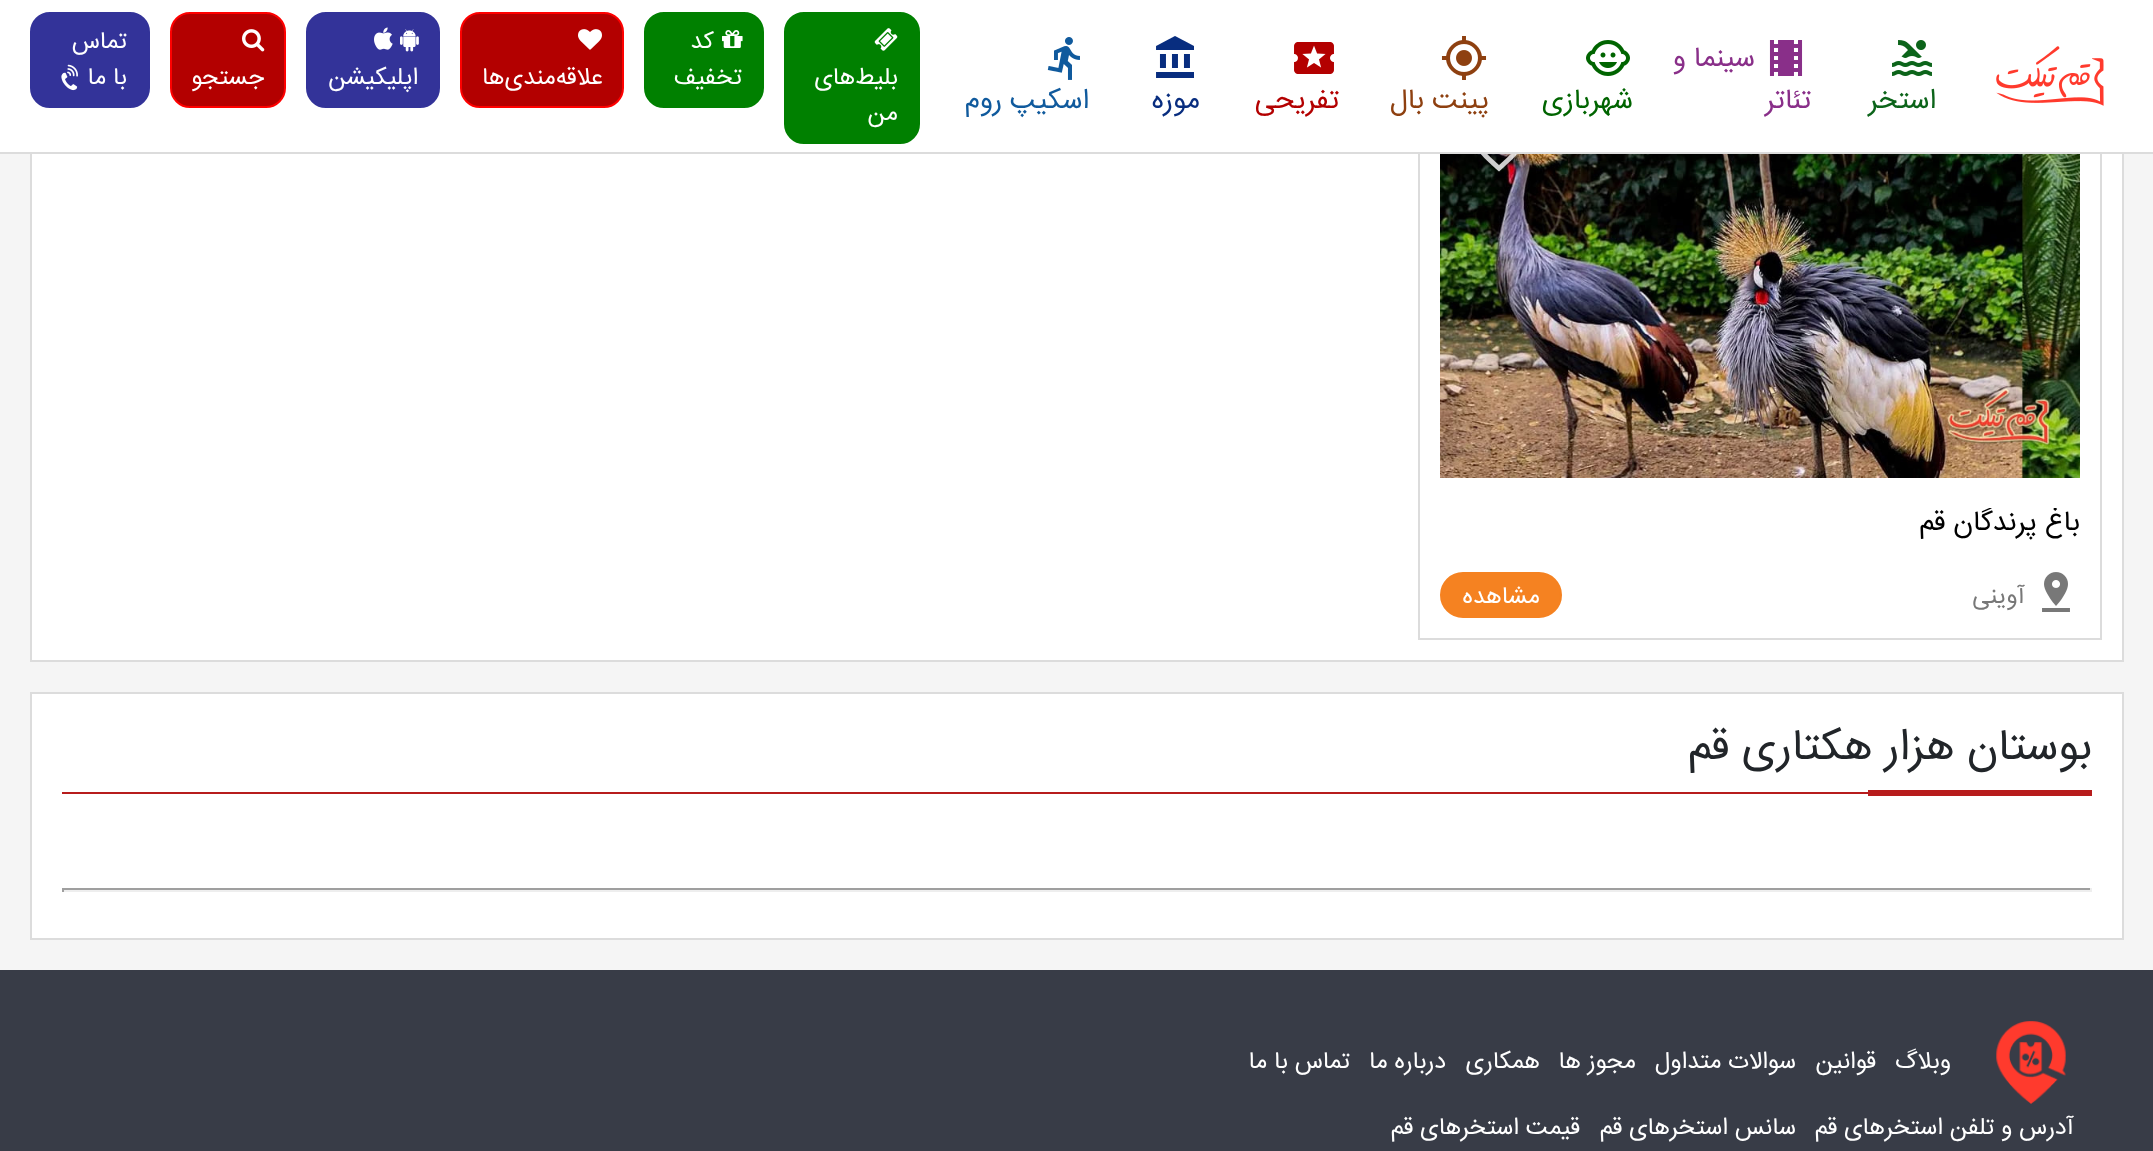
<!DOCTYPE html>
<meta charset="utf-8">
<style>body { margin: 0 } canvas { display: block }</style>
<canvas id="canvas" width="2153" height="1151"></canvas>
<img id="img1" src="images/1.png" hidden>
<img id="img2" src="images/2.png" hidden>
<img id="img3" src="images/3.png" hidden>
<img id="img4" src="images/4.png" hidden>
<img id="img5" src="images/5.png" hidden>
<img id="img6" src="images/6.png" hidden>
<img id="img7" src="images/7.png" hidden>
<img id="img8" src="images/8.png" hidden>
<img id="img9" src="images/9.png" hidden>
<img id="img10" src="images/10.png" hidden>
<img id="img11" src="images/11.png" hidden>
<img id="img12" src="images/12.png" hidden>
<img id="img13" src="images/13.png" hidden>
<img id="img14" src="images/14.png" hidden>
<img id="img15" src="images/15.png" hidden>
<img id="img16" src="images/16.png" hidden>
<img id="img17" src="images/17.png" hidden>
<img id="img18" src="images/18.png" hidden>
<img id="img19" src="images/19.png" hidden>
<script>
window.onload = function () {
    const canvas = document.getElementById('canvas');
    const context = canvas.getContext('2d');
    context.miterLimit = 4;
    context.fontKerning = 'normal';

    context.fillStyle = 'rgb(245, 245, 245)';
    context.fillRect(0, 0, 2153, 1151);
    context.fillStyle = 'rgb(255, 255, 255)';
    context.fillRect(32, 154, 2090, 506);
    context.strokeStyle = 'rgb(220, 220, 220)';
    context.lineWidth = 2;
    context.strokeRect(31, 35, 2092, 626);
    context.strokeRect(1419, 57, 682, 582);
    context.fillRect(0, 0, 2153, 152);
    context.fillStyle = 'rgb(220, 220, 220)';
    context.fillRect(0, 152, 2153, 2);
    context.drawImage(document.getElementById('img1'), 1996, 46, 108, 60);
    context.drawImage(document.getElementById('img2'), 1892, 40, 40, 36);
    context.drawImage(document.getElementById('img3'), 1769, 40, 34, 36);
    context.drawImage(document.getElementById('img4'), 1586, 40, 44, 36);
    context.drawImage(document.getElementById('img5'), 1441, 36, 46, 44);
    context.drawImage(document.getElementById('img6'), 1294, 42, 40, 32);
    context.drawImage(document.getElementById('img7'), 1156, 36, 38, 42);
    context.drawImage(document.getElementById('img8'), 1047, 37, 33, 43);
    context.fillStyle = 'rgb(0, 128, 0)';
    context.beginPath();
    context.roundRect(785, 13, 134, 130, 19);
    context.fill();
    context.strokeStyle = 'rgb(0, 128, 0)';
    context.stroke();
    context.drawImage(document.getElementById('img9'), 874, 28, 24, 23);
    context.beginPath();
    context.roundRect(645, 13, 118, 94, 19);
    context.fill();
    context.stroke();
    context.drawImage(document.getElementById('img10'), 722, 30, 21, 18);
    context.fillStyle = 'rgb(179, 0, 0)';
    context.beginPath();
    context.roundRect(461, 13, 162, 94, 19);
    context.fill();
    context.strokeStyle = 'rgb(255, 0, 0)';
    context.stroke();
    context.drawImage(document.getElementById('img11'), 578, 29, 24, 21);
    context.fillStyle = 'rgb(51, 51, 153)';
    context.beginPath();
    context.roundRect(307, 13, 132, 94, 19);
    context.fill();
    context.strokeStyle = 'rgb(51, 51, 153)';
    context.stroke();
    context.drawImage(document.getElementById('img12'), 400, 29, 19, 23);
    context.drawImage(document.getElementById('img13'), 374, 27, 19, 23);
    context.fillStyle = 'rgb(179, 0, 0)';
    context.beginPath();
    context.roundRect(171, 13, 114, 94, 19);
    context.fill();
    context.strokeStyle = 'rgb(255, 0, 0)';
    context.stroke();
    context.drawImage(document.getElementById('img14'), 242, 29, 23, 23);
    context.fillStyle = 'rgb(51, 51, 153)';
    context.beginPath();
    context.roundRect(31, 13, 118, 94, 19);
    context.fill();
    context.strokeStyle = 'rgb(51, 51, 153)';
    context.stroke();
    context.drawImage(document.getElementById('img15'), 61, 64, 17, 27);
    context.drawImage(document.getElementById('img16'), 1440, 154, 640, 324);
    context.drawImage(document.getElementById('img17'), 1480, 154, 37, 18);
    context.drawImage(document.getElementById('img18'), 2042, 572, 28, 40);
    context.fillStyle = 'rgb(245, 130, 33)';
    context.beginPath();
    context.roundRect(1441, 573, 120, 44, 22);
    context.fill();
    context.strokeStyle = 'rgb(245, 130, 33)';
    context.stroke();
    context.fillStyle = 'rgb(255, 255, 255)';
    context.beginPath();
    context.rect(31, 693, 2092, 246);
    context.fill();
    context.strokeStyle = 'rgb(220, 220, 220)';
    context.stroke();
    context.fillStyle = 'rgb(183, 28, 28)';
    context.fillRect(62, 792, 1806, 2);
    context.fillRect(1868, 790, 224, 6);
    context.fillStyle = 'rgb(159, 159, 159)';
    context.fillRect(62, 888, 2030, 2);
    context.fillStyle = 'rgb(238, 238, 238)';
    context.fillRect(2090, 888, 2, 4);
    context.fillRect(62, 890, 2030, 2);
    context.fillStyle = 'rgb(159, 159, 159)';
    context.fillRect(62, 888, 2, 4);
    context.fillStyle = 'rgb(56, 60, 71)';
    context.fillRect(0, 970, 2153, 181);
    context.drawImage(document.getElementById('img19'), 1996, 1021, 70, 83);
    context.direction = 'rtl';
    context.font = '28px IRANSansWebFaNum';
    context.fillStyle = 'rgb(12, 100, 26)';
    context.fillText('استخر', 1936, 108);
    context.fillStyle = 'rgb(137, 47, 137)';
    context.fillText('سینما و', 1755, 66);
    context.fillText('تئاتر', 1811, 108);
    context.fillStyle = 'rgb(0, 100, 0)';
    context.fillText('شهربازی', 1633, 108);
    context.fillStyle = 'rgb(142, 64, 16)';
    context.fillText('پینت بال', 1489, 108);
    context.fillStyle = 'rgb(179, 0, 0)';
    context.fillText('تفریحی', 1339, 108);
    context.fillStyle = 'rgb(8, 45, 127)';
    context.fillText('موزه', 1200, 108);
    context.fillStyle = 'rgb(16, 90, 157)';
    context.fillText('اسکیپ روم', 1089, 108);
    context.font = '24px IRANSansWebFaNum';
    context.fillStyle = 'rgb(255, 255, 255)';
    context.fillText('بلیط‌های', 898, 84);
    context.fillText('من', 898, 120);
    context.fillText('کد', 714, 48);
    context.fillText('تخفیف', 742, 84);
    context.fillText('علاقه‌مندی‌ها', 603, 84);
    context.fillText('اپلیکیشن', 418, 84);
    context.fillText('جستجو', 264, 84);
    context.fillText('تماس', 127, 48);
    context.fillText('با ما', 127, 84);
    context.save();
    context.beginPath();
    context.rect(1550, 508, 530, 34);
    context.clip();
    context.font = '28px IRANSansWebFaNum';
    context.fillStyle = 'rgb(0, 0, 0)';
    context.fillText('باغ پرندگان قم', 2080, 530);
    context.restore();
    context.fillStyle = 'rgb(120, 120, 120)';
    context.fillText('آوینی', 2025, 603);
    context.fillStyle = 'rgb(255, 255, 255)';
    context.fillText('مشاهده', 1540, 603);
    context.font = '44px IRANSansWebFaNum';
    context.fillStyle = 'rgb(33, 37, 41)';
    context.fillText('بوستان هزار هکتاری قم', 2092, 759);
    context.font = '24px IRANSansWebFaNum';
    context.fillStyle = 'rgb(255, 255, 255)';
    context.fillText('وبلاگ', 1951, 1068);
    context.fillText('قوانین', 1876, 1068);
    context.fillText('سوالات متداول', 1796, 1068);
    context.fillText('مجوز ها', 1636, 1068);
    context.fillText('همکاری', 1540, 1068);
    context.fillText('درباره ما', 1446, 1068);
    context.fillText('تماس با ما', 1350, 1068);
    context.fillText('آدرس و تلفن استخرهای قم', 2074, 1134);
    context.fillText('سانس استخرهای قم', 1796, 1134);
    context.fillText('قیمت استخرهای قم', 1580, 1134);
};
</script>
